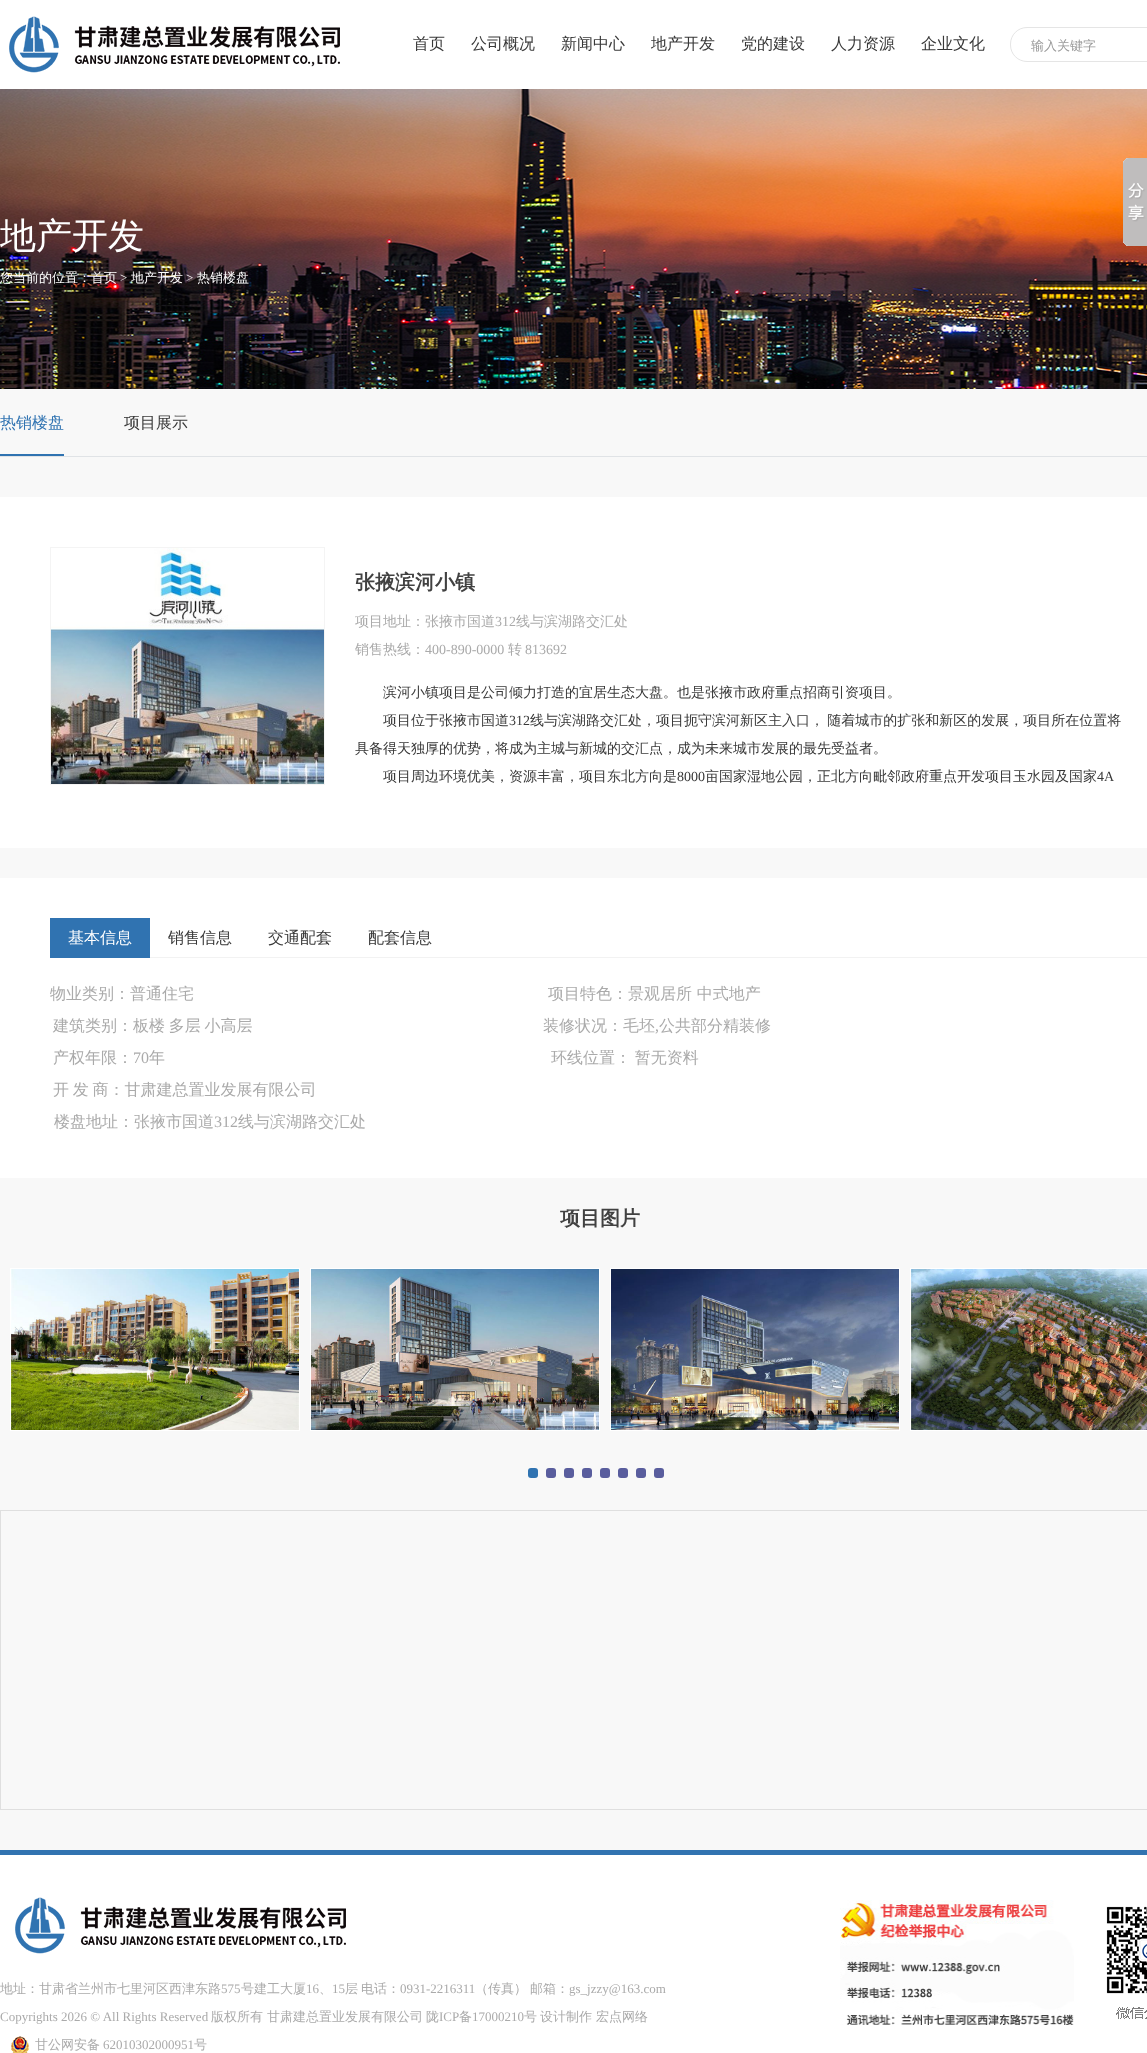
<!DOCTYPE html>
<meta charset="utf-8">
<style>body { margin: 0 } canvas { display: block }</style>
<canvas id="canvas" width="1147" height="2053"></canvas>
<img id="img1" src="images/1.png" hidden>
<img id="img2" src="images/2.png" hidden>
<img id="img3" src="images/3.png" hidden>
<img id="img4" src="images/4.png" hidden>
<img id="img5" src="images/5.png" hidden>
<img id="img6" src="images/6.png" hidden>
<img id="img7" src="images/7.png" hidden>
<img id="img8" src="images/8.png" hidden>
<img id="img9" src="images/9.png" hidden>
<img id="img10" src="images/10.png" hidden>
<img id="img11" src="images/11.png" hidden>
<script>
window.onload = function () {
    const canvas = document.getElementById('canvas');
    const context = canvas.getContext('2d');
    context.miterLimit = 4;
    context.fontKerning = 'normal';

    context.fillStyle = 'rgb(248, 248, 248)';
    context.fillRect(0, 0, 1147, 2053);
    context.fillStyle = 'rgb(255, 255, 255)';
    context.fillRect(0, 0, 1147, 89);
    context.drawImage(document.getElementById('img1'), 9, 16, 331, 57);
    context.beginPath();
    context.roundRect(1010.5, 27.5, 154, 34, 16.5);
    context.strokeStyle = 'rgb(229, 229, 229)';
    context.stroke();
    context.drawImage(document.getElementById('img2'), 0, 89, 1147, 300);
    context.drawImage(document.getElementById('img3'), 1123, 158, 24, 88);
    context.fillStyle = 'rgb(224, 227, 230)';
    context.fillRect(0, 456, 1147, 1);
    context.fillStyle = 'rgb(48, 115, 177)';
    context.fillRect(0, 454, 64, 2);
    context.fillStyle = 'rgb(255, 255, 255)';
    context.fillRect(0, 497, 1147, 351);
    context.strokeStyle = 'rgb(244, 244, 244)';
    context.strokeRect(50.5, 547.5, 274, 237);
    context.drawImage(document.getElementById('img4'), 51, 548, 273, 236);
    context.fillRect(0, 878, 1147, 300);
    context.fillStyle = 'rgb(242, 242, 242)';
    context.fillRect(150, 957, 997, 1);
    context.fillStyle = 'rgb(48, 115, 177)';
    context.fillRect(50, 918, 100, 40);
    context.strokeStyle = 'rgb(255, 255, 255)';
    context.strokeRect(10.5, 1268.5, 289, 162);
    context.drawImage(document.getElementById('img5'), 11, 1269, 288, 161);
    context.strokeRect(310.5, 1268.5, 289, 162);
    context.drawImage(document.getElementById('img6'), 311, 1269, 288, 161);
    context.strokeRect(610.5, 1268.5, 289, 162);
    context.drawImage(document.getElementById('img7'), 611, 1269, 288, 161);
    context.strokeRect(910.5, 1268.5, 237, 162);
    context.drawImage(document.getElementById('img8'), 911, 1269, 236, 161);
    context.beginPath();
    context.roundRect(528, 1468, 10, 10, 3);
    context.fill();
    context.fillStyle = 'rgb(89, 93, 157)';
    context.beginPath();
    context.roundRect(546, 1468, 10, 10, 3);
    context.fill();
    context.beginPath();
    context.roundRect(564, 1468, 10, 10, 3);
    context.fill();
    context.beginPath();
    context.roundRect(582, 1468, 10, 10, 3);
    context.fill();
    context.beginPath();
    context.roundRect(600, 1468, 10, 10, 3);
    context.fill();
    context.beginPath();
    context.roundRect(618, 1468, 10, 10, 3);
    context.fill();
    context.beginPath();
    context.roundRect(636, 1468, 10, 10, 3);
    context.fill();
    context.beginPath();
    context.roundRect(654, 1468, 10, 10, 3);
    context.fill();
    context.strokeStyle = 'rgb(223, 223, 223)';
    context.strokeRect(0.5, 1510.5, 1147, 299);
    context.fillStyle = 'rgb(255, 255, 255)';
    context.fillRect(0, 1855, 1147, 198);
    context.fillStyle = 'rgb(49, 115, 176)';
    context.fillRect(0, 1850, 1147, 5);
    context.drawImage(document.getElementById('img1'), 15, 1897, 331, 57);
    context.drawImage(document.getElementById('img9'), 11, 2036, 18, 17);
    context.drawImage(document.getElementById('img10'), 840, 1900, 234, 125);
    context.drawImage(document.getElementById('img11'), 1106, 1906, 41, 113);
    context.font = '500 16px WenQuanYi Zen Hei';
    context.fillStyle = 'rgb(56, 56, 56)';
    context.fillText('首页', 413, 49);
    context.fillText('公司概况', 471, 49);
    context.fillText('新闻中心', 561, 49);
    context.fillText('地产开发', 651, 49);
    context.fillText('党的建设', 741, 49);
    context.fillText('人力资源', 831, 49);
    context.fillText('企业文化', 921, 49);
    context.font = '500 13px WenQuanYi Zen Hei';
    context.fillStyle = 'rgb(153, 153, 153)';
    context.fillText('输入关键字', 1031, 50);
    context.font = '500 36px WenQuanYi Zen Hei';
    context.fillStyle = 'rgb(255, 255, 255)';
    context.fillText('地产开发', 0, 248);
    context.font = '500 13px WenQuanYi Zen Hei';
    context.fillText('您当前的位置：首页', 0, 282);
    context.font = '13px Liberation Serif';
    context.fillText('>', 120, 282);
    context.font = '500 13px WenQuanYi Zen Hei';
    context.fillText('地产开发', 131, 282);
    context.font = '13px Liberation Serif';
    context.fillText('>', 186, 282);
    context.font = '500 13px WenQuanYi Zen Hei';
    context.fillText('热销楼盘', 197, 282);
    context.font = '500 16px WenQuanYi Zen Hei';
    context.fillStyle = 'rgb(48, 115, 177)';
    context.fillText('热销楼盘', 0, 428);
    context.fillStyle = 'rgb(56, 56, 56)';
    context.fillText('项目展示', 124, 428);
    context.font = 'bold 20px WenQuanYi Zen Hei';
    context.fillStyle = 'rgb(65, 65, 65)';
    context.fillText('张掖滨河小镇', 355, 589);
    context.font = '500 14px WenQuanYi Zen Hei';
    context.fillStyle = 'rgb(170, 170, 170)';
    context.fillText('项目地址：张掖市国道', 355, 626);
    context.font = '14px Liberation Serif';
    context.fillText('312', 495, 626);
    context.font = '500 14px WenQuanYi Zen Hei';
    context.fillText('线与滨湖路交汇处', 516, 626);
    context.fillText('销售热线：', 355, 654);
    context.font = '14px Liberation Serif';
    context.fillText('400-890-0000', 425, 654);
    context.font = '500 14px WenQuanYi Zen Hei';
    context.fillText('转', 508, 654);
    context.font = '14px Liberation Serif';
    context.fillText('813692', 525, 654);
    context.font = '500 14px WenQuanYi Zen Hei';
    context.fillStyle = 'rgb(56, 56, 56)';
    context.fillText('滨河小镇项目是公司倾力打造的宜居生态大盘。也是张掖市政府重点招商引资项目。', 383, 697);
    context.fillText('项目位于张掖市国道', 383, 725);
    context.font = '14px Liberation Serif';
    context.fillText('312', 509, 725);
    context.wordSpacing = '-1px';
    context.font = '500 14px WenQuanYi Zen Hei';
    context.fillText('线与滨湖路交汇处，项目扼守滨河新区主入口， 随着城市的扩张和新区的发展，项目所在位置将', 530, 725);
    context.wordSpacing = '0px';
    context.fillText('具备得天独厚的优势，将成为主城与新城的交汇点，成为未来城市发展的最先受益者。', 355, 753);
    context.fillText('项目周边环境优美，资源丰富，项目东北方向是', 383, 781);
    context.font = '14px Liberation Serif';
    context.fillText('8000', 677, 781);
    context.font = '500 14px WenQuanYi Zen Hei';
    context.fillText('亩国家湿地公园，正北方向毗邻政府重点开发项目玉水园及国家', 705, 781);
    context.font = '14px Liberation Serif';
    context.fillText('4A', 1097, 781);
    context.font = '500 16px WenQuanYi Zen Hei';
    context.fillStyle = 'rgb(255, 255, 255)';
    context.fillText('基本信息', 68, 943);
    context.fillStyle = 'rgb(56, 56, 56)';
    context.fillText('销售信息', 168, 943);
    context.fillText('交通配套', 268, 943);
    context.fillText('配套信息', 368, 943);
    context.fillStyle = 'rgb(170, 170, 170)';
    context.fillText('物业类别：普通住宅', 50, 999);
    context.fillText('项目特色：景观居所 中式地产', 548, 999);
    context.wordSpacing = '-1px';
    context.fillText('建筑类别：板楼 多层 小高层', 53, 1031);
    context.wordSpacing = '0px';
    context.fillText('装修状况：毛坯', 543, 1031);
    context.font = '16px Liberation Serif';
    context.fillText(',', 655, 1031);
    context.font = '500 16px WenQuanYi Zen Hei';
    context.fillText('公共部分精装修', 659, 1031);
    context.fillText('产权年限：', 53, 1063);
    context.font = '16px Liberation Serif';
    context.fillText('70', 133, 1063);
    context.font = '500 16px WenQuanYi Zen Hei';
    context.fillText('年', 149, 1063);
    context.wordSpacing = '-1px';
    context.fillText('环线位置： 暂无资料', 551, 1063);
    context.fillText('开 发 商：甘肃建总置业发展有限公司', 53, 1095);
    context.wordSpacing = '0px';
    context.fillText('楼盘地址：张掖市国道', 54, 1127);
    context.font = '16px Liberation Serif';
    context.fillText('312', 214, 1127);
    context.font = '500 16px WenQuanYi Zen Hei';
    context.fillText('线与滨湖路交汇处', 238, 1127);
    context.font = 'bold 20px WenQuanYi Zen Hei';
    context.fillStyle = 'rgb(65, 65, 65)';
    context.fillText('项目图片', 560, 1225);
    context.font = '500 13px WenQuanYi Zen Hei';
    context.fillStyle = 'rgb(170, 170, 170)';
    context.fillText('地址：甘肃省兰州市七里河区西津东路', 0, 1993);
    context.font = '13px Liberation Serif';
    context.fillText('575', 221, 1993);
    context.font = '500 13px WenQuanYi Zen Hei';
    context.fillText('号建工大厦', 241, 1993);
    context.font = '13px Liberation Serif';
    context.fillText('16', 306, 1993);
    context.font = '500 13px WenQuanYi Zen Hei';
    context.fillText('、', 319, 1993);
    context.font = '13px Liberation Serif';
    context.fillText('15', 332, 1993);
    context.wordSpacing = '-1px';
    context.font = '500 13px WenQuanYi Zen Hei';
    context.fillText('层 电话：', 345, 1993);
    context.wordSpacing = '0px';
    context.font = '13px Liberation Serif';
    context.fillText('0931-2216311', 400, 1993);
    context.wordSpacing = '-1px';
    context.font = '500 13px WenQuanYi Zen Hei';
    context.fillText('（传真） 邮箱：', 475, 1993);
    context.wordSpacing = '0px';
    context.font = '13px Liberation Serif';
    context.fillText('gs_jzzy@163.com', 569, 1993);
    context.fillText('Copyrights 2026 © All Rights Reserved', 0, 2021);
    context.font = '500 13px WenQuanYi Zen Hei';
    context.fillText('版权所有', 211, 2021);
    context.fillText('甘肃建总置业发展有限公司', 267, 2021);
    context.fillText('陇', 426, 2021);
    context.font = '13px Liberation Serif';
    context.fillText('ICP', 439, 2021);
    context.font = '500 13px WenQuanYi Zen Hei';
    context.fillText('备', 459, 2021);
    context.font = '13px Liberation Serif';
    context.fillText('17000210', 472, 2021);
    context.font = '500 13px WenQuanYi Zen Hei';
    context.fillText('号', 524, 2021);
    context.fillText('设计制作', 540, 2021);
    context.fillText('宏点网络', 596, 2021);
    context.fillText('甘公网安备', 35, 2049);
    context.font = '13px Liberation Serif';
    context.fillText('62010302000951', 103, 2049);
    context.font = '500 13px WenQuanYi Zen Hei';
    context.fillText('号', 194, 2049);
};
</script>
